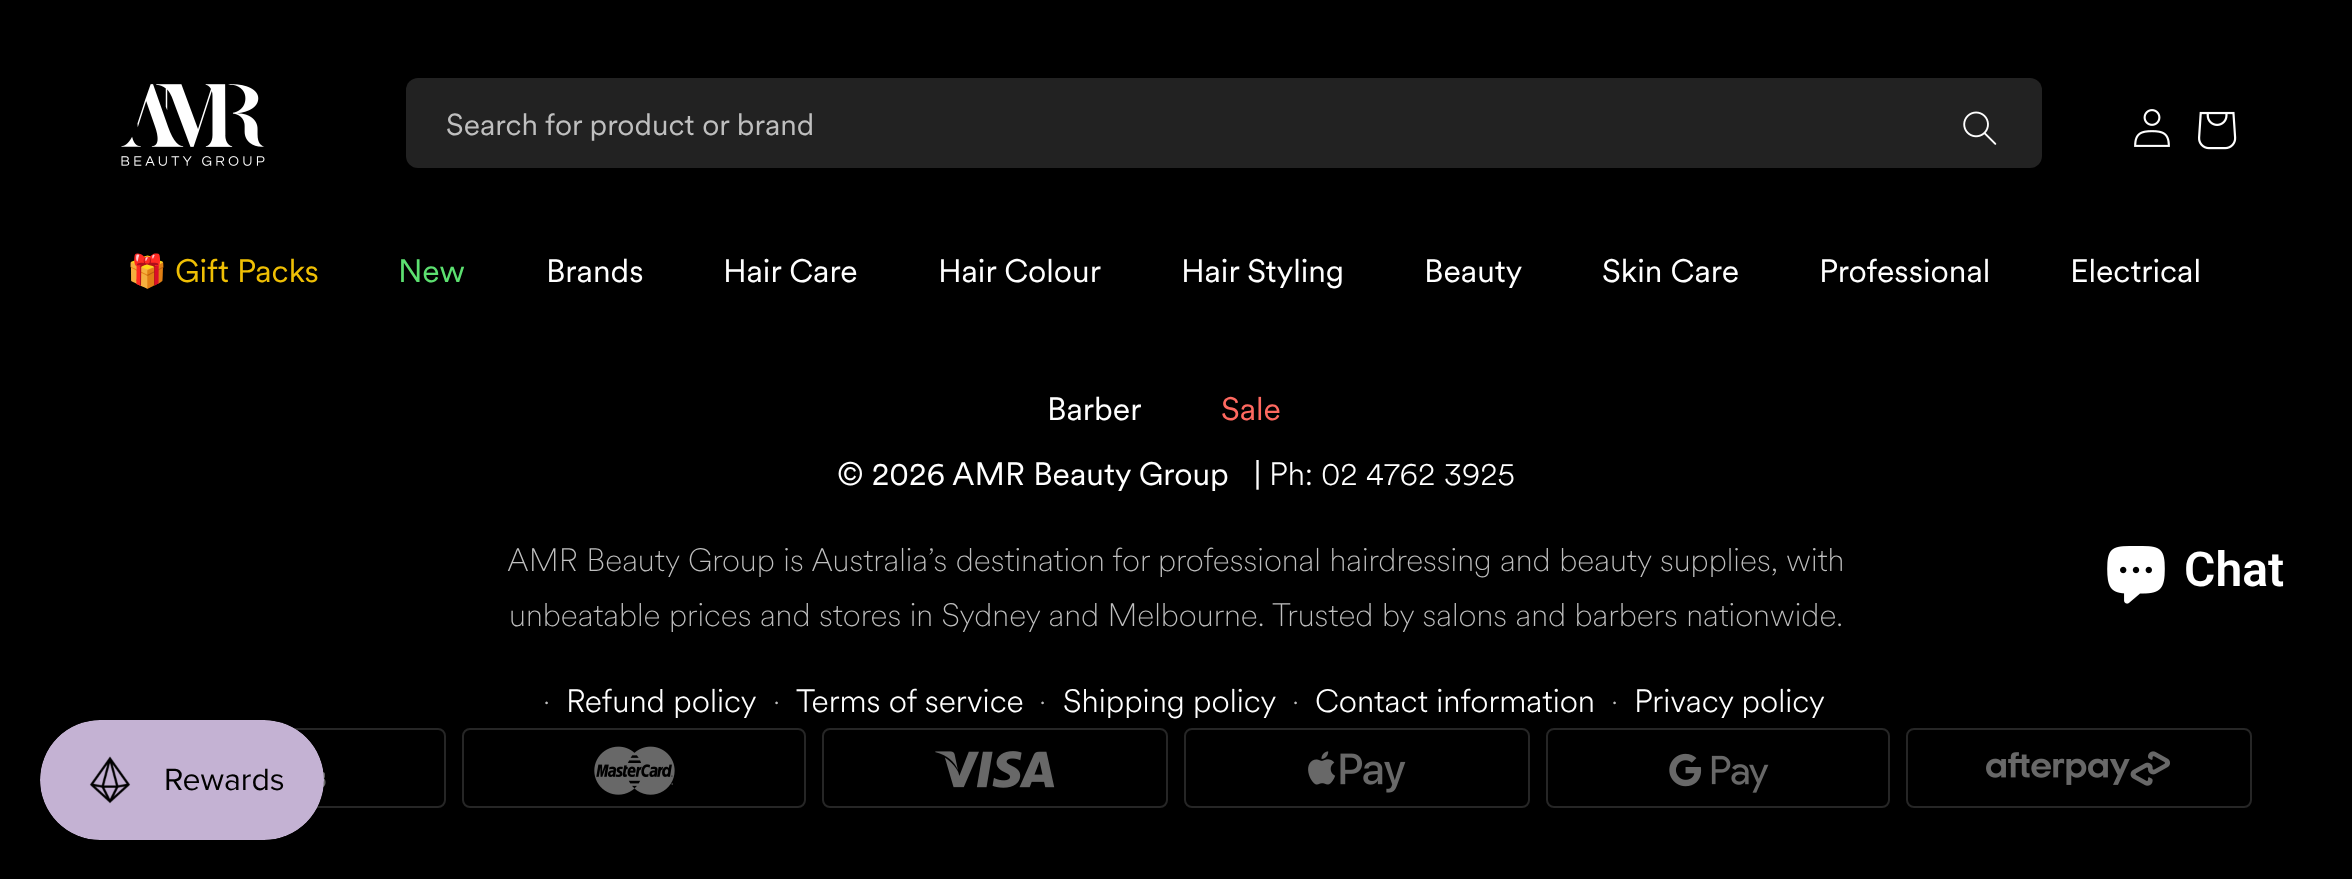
<!DOCTYPE html>
<meta charset="utf-8">
<style>body { margin: 0 } canvas { display: block }</style>
<canvas id="canvas" width="2352" height="879"></canvas>
<img id="img1" src="images/1.png" hidden>
<img id="img2" src="images/2.png" hidden>
<img id="img3" src="images/3.png" hidden>
<img id="img4" src="images/4.png" hidden>
<img id="img5" src="images/5.png" hidden>
<img id="img6" src="images/6.png" hidden>
<img id="img7" src="images/7.png" hidden>
<img id="img8" src="images/8.png" hidden>
<img id="img9" src="images/9.png" hidden>
<img id="img10" src="images/10.png" hidden>
<img id="img11" src="images/11.png" hidden>
<img id="img12" src="images/12.png" hidden>
<script>
window.onload = function () {
    const canvas = document.getElementById('canvas');
    const context = canvas.getContext('2d');
    context.miterLimit = 4;
    context.fontKerning = 'normal';

    context.fillStyle = 'rgb(0, 0, 0)';
    context.fillRect(0, 0, 2352, 879);
    context.drawImage(document.getElementById('img1'), 121, 84, 144, 82);
    context.fillStyle = 'rgb(34, 34, 34)';
    context.beginPath();
    context.roundRect(406, 78, 1636, 90, 12);
    context.fill();
    context.drawImage(document.getElementById('img2'), 1963, 111, 34, 34);
    context.drawImage(document.getElementById('img3'), 2134, 109, 36, 38);
    context.drawImage(document.getElementById('img4'), 2198, 111, 39, 39);
    context.beginPath();
    context.roundRect(101, 729, 344, 78, 7);
    context.strokeStyle = 'rgb(38, 38, 38)';
    context.lineWidth = 2;
    context.stroke();
    context.drawImage(document.getElementById('img5'), 316, 751, 10, 36);
    context.beginPath();
    context.roundRect(463, 729, 342, 78, 7);
    context.stroke();
    context.drawImage(document.getElementById('img6'), 594, 746, 81, 49);
    context.beginPath();
    context.roundRect(823, 729, 344, 78, 7);
    context.stroke();
    context.drawImage(document.getElementById('img7'), 935, 751, 120, 37);
    context.beginPath();
    context.roundRect(1185, 729, 344, 78, 7);
    context.stroke();
    context.drawImage(document.getElementById('img8'), 1308, 751, 98, 42);
    context.beginPath();
    context.roundRect(1547, 729, 342, 78, 7);
    context.stroke();
    context.drawImage(document.getElementById('img9'), 1669, 753, 100, 40);
    context.beginPath();
    context.roundRect(1907, 729, 344, 78, 7);
    context.stroke();
    context.drawImage(document.getElementById('img10'), 1986, 751, 184, 35);
    context.drawImage(document.getElementById('img11'), 2107, 546, 58, 58);
    context.drawImage(document.getElementById('img12'), 40, 720, 284, 120);
    context.font = '30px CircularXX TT';
    context.fillStyle = 'rgb(191, 191, 191)';
    context.fillText('Search for product or brand', 446, 135);
    context.font = '32px Noto Color Emoji';
    context.fillStyle = 'rgb(239, 191, 4)';
    context.fillText('🎁', 127, 282);
    context.font = '32px CircularXX TT';
    context.fillText('Gift Packs', 175, 282);
    context.fillStyle = 'rgb(92, 224, 112)';
    context.fillText('New', 398, 282);
    context.fillStyle = 'rgb(255, 255, 255)';
    context.fillText('Brands', 546, 282);
    context.fillText('Hair Care', 723, 282);
    context.fillText('Hair Colour', 938, 282);
    context.fillText('Hair Styling', 1181, 282);
    context.fillText('Beauty', 1424, 282);
    context.fillText('Skin Care', 1602, 282);
    context.fillText('Professional', 1819, 282);
    context.fillText('Electrical', 2070, 282);
    context.fillText('Barber', 1047, 420);
    context.fillStyle = 'rgb(255, 105, 96)';
    context.fillText('Sale', 1221, 420);
    context.fillStyle = 'rgb(255, 255, 255)';
    context.fillText('© 2026', 837, 485);
    context.fillText('AMR Beauty Group', 952, 485);
    context.fillText('|', 1254, 485);
    context.font = '300 32px CircularXX TT';
    context.fillText('Ph: 02 4762 3925', 1269, 485);
    context.font = '100 32px CircularXX TT';
    context.fillStyle = 'rgb(191, 191, 191)';
    context.fillText('AMR Beauty Group is Australia’s destination for professional hairdressing and beauty supplies, with', 507, 571);
    context.fillText('unbeatable prices and stores in Sydney and Melbourne. Trusted by salons and barbers nationwide.', 509, 626);
    context.fillText('·', 543, 712);
    context.font = '300 32px CircularXX TT';
    context.fillStyle = 'rgb(255, 255, 255)';
    context.fillText('Refund policy', 566, 712);
    context.font = '100 32px CircularXX TT';
    context.fillStyle = 'rgb(191, 191, 191)';
    context.fillText('·', 773, 712);
    context.font = '300 32px CircularXX TT';
    context.fillStyle = 'rgb(255, 255, 255)';
    context.fillText('Terms of service', 796, 712);
    context.font = '100 32px CircularXX TT';
    context.fillStyle = 'rgb(191, 191, 191)';
    context.fillText('·', 1039, 712);
    context.font = '300 32px CircularXX TT';
    context.fillStyle = 'rgb(255, 255, 255)';
    context.fillText('Shipping policy', 1063, 712);
    context.font = '100 32px CircularXX TT';
    context.fillStyle = 'rgb(191, 191, 191)';
    context.fillText('·', 1292, 712);
    context.font = '300 32px CircularXX TT';
    context.fillStyle = 'rgb(255, 255, 255)';
    context.fillText('Contact information', 1315, 712);
    context.font = '100 32px CircularXX TT';
    context.fillStyle = 'rgb(191, 191, 191)';
    context.fillText('·', 1611, 712);
    context.font = '300 32px CircularXX TT';
    context.fillStyle = 'rgb(255, 255, 255)';
    context.fillText('Privacy policy', 1634, 712);
    context.font = '600 48px Roboto';
    context.fillText('Chat', 2184, 586);
};
</script>
